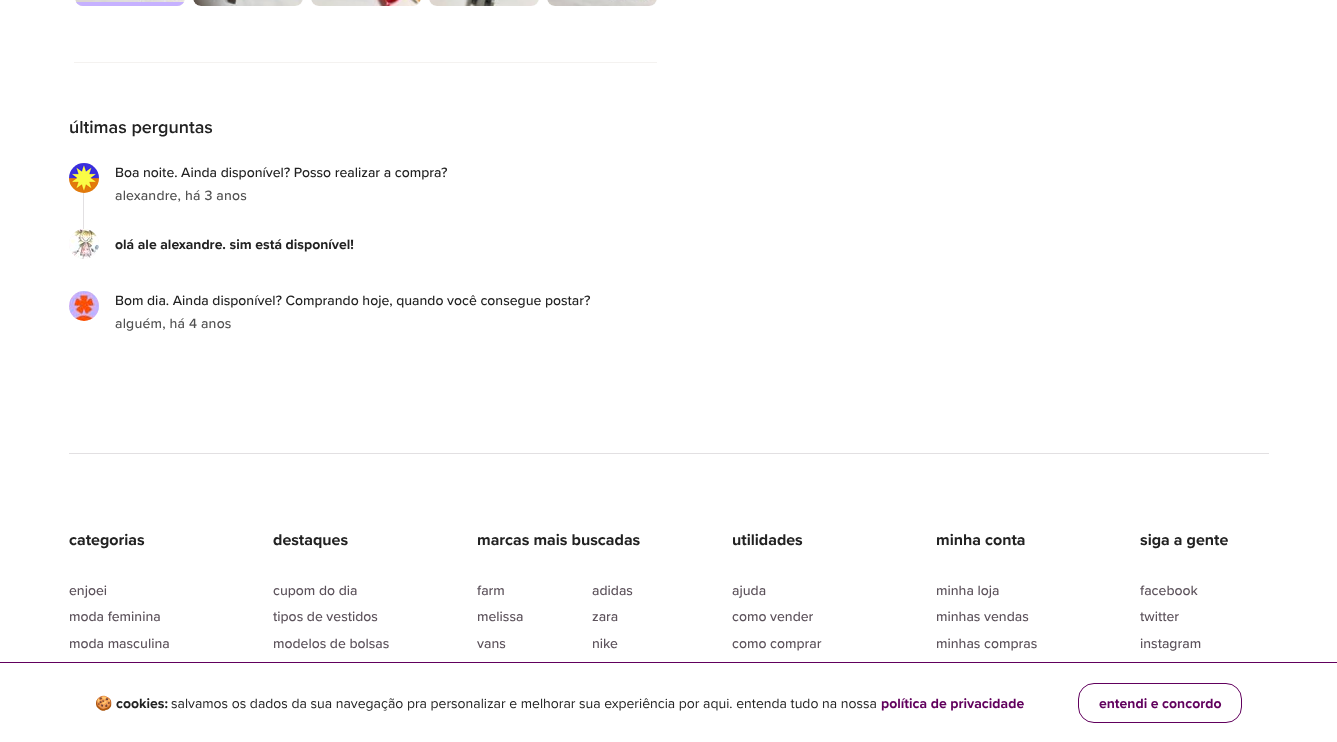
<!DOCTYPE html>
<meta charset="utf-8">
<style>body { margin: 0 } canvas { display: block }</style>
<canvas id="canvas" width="1337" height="742"></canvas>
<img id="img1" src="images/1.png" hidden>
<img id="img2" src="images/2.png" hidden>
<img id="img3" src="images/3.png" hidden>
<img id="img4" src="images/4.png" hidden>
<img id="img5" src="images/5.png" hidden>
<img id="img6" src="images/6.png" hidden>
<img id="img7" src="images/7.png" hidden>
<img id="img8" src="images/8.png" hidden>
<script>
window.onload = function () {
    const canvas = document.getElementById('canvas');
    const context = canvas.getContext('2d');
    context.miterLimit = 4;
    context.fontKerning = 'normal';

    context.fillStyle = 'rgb(255, 255, 255)';
    context.fillRect(0, 0, 1337, 742);
    context.fillStyle = 'rgb(244, 242, 240)';
    context.fillRect(74, 62, 583, 1);
    context.fillStyle = 'rgb(248, 248, 248)';
    context.beginPath();
    context.roundRect(75, -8, 110, 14, 8);
    context.fill();
    context.drawImage(document.getElementById('img1'), 75, 0, 110, 6);
    context.save();
    context.beginPath();
    context.roundRect(75, -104, 110, 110, 8);
    context.clip();
    context.fillStyle = 'rgb(198, 177, 255)';
    context.beginPath();
    context.roundRect(75, 2, 110, 4, [0, 0, 4, 4]);
    context.fill();
    context.restore();
    context.beginPath();
    context.roundRect(193, -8, 110, 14, 8);
    context.fill();
    context.drawImage(document.getElementById('img2'), 193, 0, 110, 6);
    context.beginPath();
    context.roundRect(311, -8, 110, 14, 8);
    context.fill();
    context.drawImage(document.getElementById('img3'), 311, 0, 110, 6);
    context.beginPath();
    context.roundRect(429, -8, 110, 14, 8);
    context.fill();
    context.drawImage(document.getElementById('img4'), 429, 0, 110, 6);
    context.beginPath();
    context.roundRect(547, -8, 110, 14, 8);
    context.fill();
    context.drawImage(document.getElementById('img5'), 547, 0, 110, 6);
    context.fillStyle = 'rgb(226, 224, 226)';
    context.fillRect(83, 163, 1, 66);
    context.fillStyle = 'rgb(244, 242, 240)';
    context.beginPath();
    context.arc(84, 178, 15, 0, 2 * Math.PI);
    context.fill();
    context.drawImage(document.getElementById('img6'), 69, 163, 30, 30);
    context.beginPath();
    context.arc(84, 244, 15, 0, 2 * Math.PI);
    context.fill();
    context.drawImage(document.getElementById('img7'), 69, 229, 30, 30);
    context.beginPath();
    context.arc(84, 306, 15, 0, 2 * Math.PI);
    context.fill();
    context.drawImage(document.getElementById('img8'), 69, 291, 30, 30);
    context.fillStyle = 'rgb(97, 0, 93)';
    context.fillRect(0, 662, 1337, 1);
    context.beginPath();
    context.roundRect(1078.5, 683.5, 163, 39, 15.5);
    context.strokeStyle = 'rgb(97, 0, 93)';
    context.stroke();
    context.fillStyle = 'rgb(226, 224, 226)';
    context.fillRect(69, 453, 1200, 1);
    context.font = '600 18px Proxima Nova';
    context.fillStyle = 'rgb(34, 34, 34)';
    context.fillText('últimas perguntas', 69, 133);
    context.font = '500 14px Proxima Nova';
    context.fillText('Boa noite. Ainda disponível? Posso realizar a compra?', 115, 177);
    context.letterSpacing = '0.2px';
    context.fillStyle = 'rgb(81, 81, 81)';
    context.fillText('alexandre, há 3 anos', 115, 200);
    context.letterSpacing = '0px';
    context.font = 'bold 14px Proxima Nova';
    context.fillStyle = 'rgb(34, 34, 34)';
    context.fillText('olá ale alexandre. sim está disponível!', 115, 249);
    context.font = '500 14px Proxima Nova';
    context.fillText('Bom dia. Ainda disponível? Comprando hoje, quando você consegue postar?', 115, 305);
    context.letterSpacing = '0.2px';
    context.fillStyle = 'rgb(81, 81, 81)';
    context.fillText('alguém, há 4 anos', 115, 328);
    context.letterSpacing = '0px';
    context.font = '14px Noto Color Emoji';
    context.fillStyle = 'rgb(34, 34, 34)';
    context.fillText('🍪', 95, 708);
    context.font = 'bold 14px Proxima Nova';
    context.fillText('cookies:', 116, 708);
    context.font = '14px Proxima Nova';
    context.fillText('salvamos os dados da sua navegação pra personalizar e melhorar sua experiência por aqui. entenda tudo na nossa', 171, 708);
    context.font = 'bold 14px Proxima Nova';
    context.fillStyle = 'rgb(97, 0, 93)';
    context.fillText('política de privacidade', 881, 708);
    context.fillText('entendi e concordo', 1099, 708);
    context.font = 'bold 16px Proxima Nova';
    context.fillStyle = 'rgb(34, 34, 34)';
    context.fillText('categorias', 69, 545);
    context.font = '500 14px Proxima Nova';
    context.fillStyle = 'rgb(92, 82, 91)';
    context.fillText('enjoei', 69, 595);
    context.fillText('moda feminina', 69, 621);
    context.fillText('moda masculina', 69, 648);
    context.font = 'bold 16px Proxima Nova';
    context.fillStyle = 'rgb(34, 34, 34)';
    context.fillText('destaques', 273, 545);
    context.font = '500 14px Proxima Nova';
    context.fillStyle = 'rgb(92, 82, 91)';
    context.fillText('cupom do dia', 273, 595);
    context.fillText('tipos de vestidos', 273, 621);
    context.fillText('modelos de bolsas', 273, 648);
    context.font = 'bold 16px Proxima Nova';
    context.fillStyle = 'rgb(34, 34, 34)';
    context.fillText('marcas mais buscadas', 477, 545);
    context.font = '500 14px Proxima Nova';
    context.fillStyle = 'rgb(92, 82, 91)';
    context.fillText('farm', 477, 595);
    context.fillText('adidas', 592, 595);
    context.fillText('melissa', 477, 621);
    context.fillText('zara', 592, 621);
    context.fillText('vans', 477, 648);
    context.fillText('nike', 592, 648);
    context.font = 'bold 16px Proxima Nova';
    context.fillStyle = 'rgb(34, 34, 34)';
    context.fillText('utilidades', 732, 545);
    context.font = '500 14px Proxima Nova';
    context.fillStyle = 'rgb(92, 82, 91)';
    context.fillText('ajuda', 732, 595);
    context.fillText('como vender', 732, 621);
    context.fillText('como comprar', 732, 648);
    context.font = 'bold 16px Proxima Nova';
    context.fillStyle = 'rgb(34, 34, 34)';
    context.fillText('minha conta', 936, 545);
    context.font = '500 14px Proxima Nova';
    context.fillStyle = 'rgb(92, 82, 91)';
    context.fillText('minha loja', 936, 595);
    context.fillText('minhas vendas', 936, 621);
    context.fillText('minhas compras', 936, 648);
    context.font = 'bold 16px Proxima Nova';
    context.fillStyle = 'rgb(34, 34, 34)';
    context.fillText('siga a gente', 1140, 545);
    context.font = '500 14px Proxima Nova';
    context.fillStyle = 'rgb(92, 82, 91)';
    context.fillText('facebook', 1140, 595);
    context.fillText('twitter', 1140, 621);
    context.fillText('instagram', 1140, 648);
};
</script>
